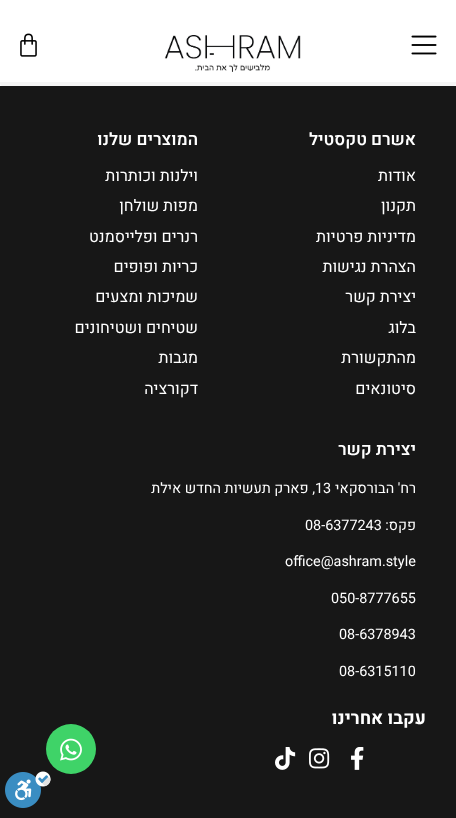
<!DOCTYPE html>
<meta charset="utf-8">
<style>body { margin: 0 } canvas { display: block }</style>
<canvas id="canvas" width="456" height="818"></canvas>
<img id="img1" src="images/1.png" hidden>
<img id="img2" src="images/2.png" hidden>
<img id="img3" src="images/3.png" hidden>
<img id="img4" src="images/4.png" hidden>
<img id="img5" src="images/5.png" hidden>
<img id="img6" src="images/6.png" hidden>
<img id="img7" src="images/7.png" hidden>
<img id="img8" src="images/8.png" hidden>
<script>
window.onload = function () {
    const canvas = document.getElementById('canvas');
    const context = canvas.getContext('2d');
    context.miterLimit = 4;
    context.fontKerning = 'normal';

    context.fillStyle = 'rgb(255, 255, 255)';
    context.fillRect(0, 0, 456, 818);
    context.fillStyle = 'rgb(245, 245, 245)';
    context.beginPath();
    context.roundRect(0, -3, 456, 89, 3);
    context.fill();
    context.fillStyle = 'rgb(255, 255, 255)';
    context.fillRect(0, 0, 456, 82);
    context.drawImage(document.getElementById('img1'), 411, 35, 26, 20);
    context.drawImage(document.getElementById('img2'), 164, 35, 137, 37);
    context.drawImage(document.getElementById('img3'), 20, 33, 17, 24);
    context.fillStyle = 'rgb(23, 23, 23)';
    context.fillRect(0, 86, 456, 732);
    context.fillStyle = 'rgb(63, 211, 104)';
    context.beginPath();
    context.arc(71, 749, 25, 0, 2 * Math.PI);
    context.fill();
    context.drawImage(document.getElementById('img4'), 60, 738, 22, 23);
    context.drawImage(document.getElementById('img5'), 351, 747, 13, 23);
    context.drawImage(document.getElementById('img6'), 309, 748, 21, 21);
    context.drawImage(document.getElementById('img7'), 275, 747, 21, 23);
    context.drawImage(document.getElementById('img8'), 5, 771, 46, 37);
    context.direction = 'rtl';
    context.font = '600 17px Heebo';
    context.fillStyle = 'rgb(255, 255, 255)';
    context.fillText('אשרם טקסטיל', 416, 145);
    context.font = '16px Heebo';
    context.fillText('אודות', 416, 181);
    context.fillText('תקנון', 416, 211);
    context.fillText('מדיניות פרטיות', 416, 242);
    context.fillText('הצהרת נגישות', 416, 272);
    context.fillText('יצירת קשר', 416, 302);
    context.fillText('בלוג', 416, 333);
    context.fillText('מהתקשורת', 416, 363);
    context.fillText('סיטונאים', 416, 394);
    context.font = '600 17px Heebo';
    context.fillText('המוצרים שלנו', 198, 145);
    context.font = '16px Heebo';
    context.fillText('וילנות וכותרות', 198, 181);
    context.fillText('מפות שולחן', 198, 211);
    context.fillText('רנרים ופלייסמנט', 198, 242);
    context.fillText('כריות ופופים', 198, 272);
    context.fillText('שמיכות ומצעים', 198, 302);
    context.fillText('שטיחים ושטיחונים', 198, 333);
    context.fillText('מגבות', 198, 363);
    context.fillText('דקורציה', 198, 394);
    context.font = '600 17px Heebo';
    context.fillText('יצירת קשר', 416, 455);
    context.font = '14.4px Heebo';
    context.fillText('רח\' הבורסקאי', 416, 493);
    context.direction = 'ltr';
    context.fillText('13', 315, 493);
    context.direction = 'rtl';
    context.fillText(', פארק תעשיות החדש אילת', 315, 493);
    context.fillText('פקס:', 416, 530);
    context.direction = 'ltr';
    context.fillText('08-6377243', 305, 530);
    context.fillText('office@ashram.style', 285, 566);
    context.fillText('050-8777655', 331, 603);
    context.fillText('08-6378943', 339, 639);
    context.fillText('08-6315110', 339, 676);
    context.direction = 'rtl';
    context.font = 'bold 18px Heebo';
    context.fillText('עקבו אחרינו', 426, 724);
};
</script>
